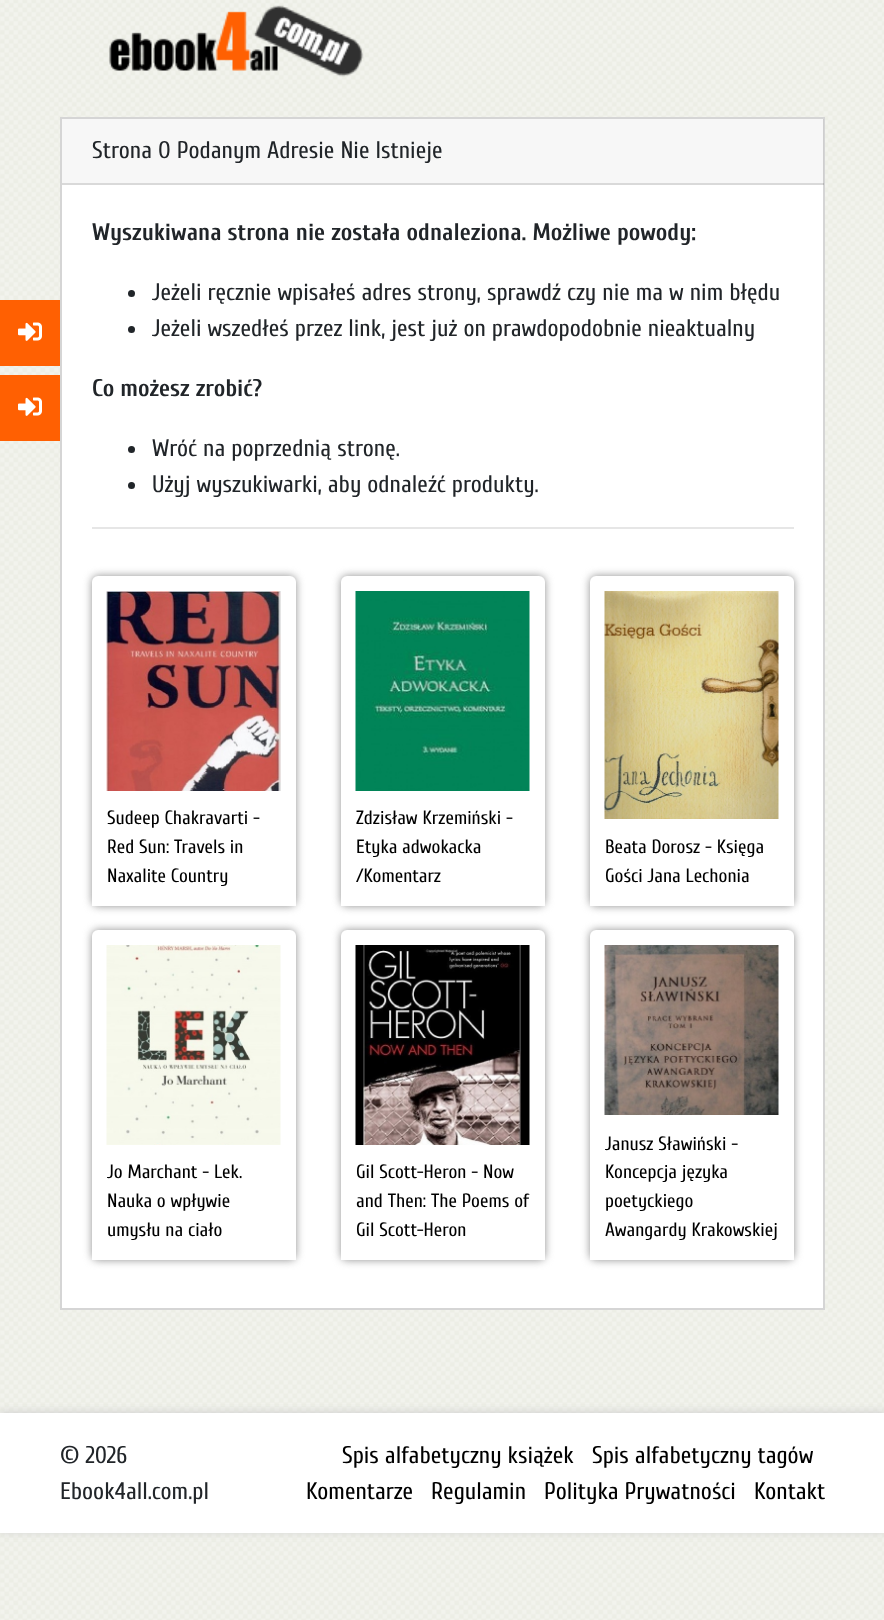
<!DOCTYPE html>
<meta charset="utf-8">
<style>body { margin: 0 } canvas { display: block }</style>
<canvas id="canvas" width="884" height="1620"></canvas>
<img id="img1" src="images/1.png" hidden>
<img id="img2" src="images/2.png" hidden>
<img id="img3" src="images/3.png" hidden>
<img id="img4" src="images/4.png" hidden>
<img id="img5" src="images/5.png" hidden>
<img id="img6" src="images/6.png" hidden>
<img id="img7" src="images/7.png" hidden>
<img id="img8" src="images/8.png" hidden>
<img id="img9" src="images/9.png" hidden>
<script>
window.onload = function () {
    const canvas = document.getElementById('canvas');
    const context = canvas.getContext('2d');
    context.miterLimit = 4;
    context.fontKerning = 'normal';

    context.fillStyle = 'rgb(255, 255, 255)';
    context.fillRect(0, 0, 884, 1620);
    context.drawImage(document.getElementById('img1'), 0, 0, 884, 1620);
    context.fillStyle = 'rgb(255, 96, 2)';
    context.fillRect(0, 300, 60, 66);
    context.drawImage(document.getElementById('img2'), 18, 322, 24, 19);
    context.drawImage(document.getElementById('img3'), 109, 5, 255, 72);
    context.fillStyle = 'rgb(255, 255, 255)';
    context.beginPath();
    context.rect(61, 118, 763, 1191);
    context.fill();
    context.strokeStyle = 'rgb(213, 213, 213)';
    context.lineWidth = 2;
    context.stroke();
    context.fillStyle = 'rgba(0, 0, 0, 0.03)';
    context.fillRect(62, 119, 762, 66);
    context.fillStyle = 'rgba(0, 0, 0, 0.12)';
    context.fillRect(62, 183, 762, 2);
    context.fillStyle = 'rgb(33, 37, 41)';
    context.beginPath();
    context.arc(131.5, 293.5, 3.5, 0, 2 * Math.PI);
    context.fill();
    context.beginPath();
    context.arc(131.5, 329.5, 3.5, 0, 2 * Math.PI);
    context.fill();
    context.beginPath();
    context.arc(131.5, 449.5, 3.5, 0, 2 * Math.PI);
    context.fill();
    context.beginPath();
    context.arc(131.5, 485.5, 3.5, 0, 2 * Math.PI);
    context.fill();
    context.fillStyle = 'rgb(230, 230, 230)';
    context.fillRect(92, 527, 702, 2);
    context.fillStyle = 'rgb(144, 144, 144)';
    context.filter = 'blur(4px)';
    context.beginPath();
    context.roundRect(92, 576, 204, 330, 6);
    context.fill();
    context.filter = 'none';
    context.fillStyle = 'rgb(255, 255, 255)';
    context.beginPath();
    context.roundRect(92, 576, 204, 330, 6);
    context.fill();
    context.drawImage(document.getElementById('img4'), 106, 591, 175, 200);
    context.fillRect(92, 900, 204, 6);
    context.fillStyle = 'rgb(144, 144, 144)';
    context.filter = 'blur(4px)';
    context.beginPath();
    context.roundRect(341, 576, 204, 330, 6);
    context.fill();
    context.filter = 'none';
    context.fillStyle = 'rgb(255, 255, 255)';
    context.beginPath();
    context.roundRect(341, 576, 204, 330, 6);
    context.fill();
    context.drawImage(document.getElementById('img5'), 355, 591, 175, 200);
    context.fillRect(341, 900, 204, 6);
    context.fillStyle = 'rgb(144, 144, 144)';
    context.filter = 'blur(4px)';
    context.beginPath();
    context.roundRect(590, 576, 204, 330, 6);
    context.fill();
    context.filter = 'none';
    context.fillStyle = 'rgb(255, 255, 255)';
    context.beginPath();
    context.roundRect(590, 576, 204, 330, 6);
    context.fill();
    context.drawImage(document.getElementById('img6'), 604, 591, 175, 228);
    context.fillRect(590, 900, 204, 6);
    context.fillStyle = 'rgb(144, 144, 144)';
    context.filter = 'blur(4px)';
    context.beginPath();
    context.roundRect(92, 930, 204, 330, 6);
    context.fill();
    context.filter = 'none';
    context.fillStyle = 'rgb(255, 255, 255)';
    context.beginPath();
    context.roundRect(92, 930, 204, 330, 6);
    context.fill();
    context.drawImage(document.getElementById('img7'), 106, 945, 175, 200);
    context.fillRect(92, 1254, 204, 6);
    context.fillStyle = 'rgb(144, 144, 144)';
    context.filter = 'blur(4px)';
    context.beginPath();
    context.roundRect(341, 930, 204, 330, 6);
    context.fill();
    context.filter = 'none';
    context.fillStyle = 'rgb(255, 255, 255)';
    context.beginPath();
    context.roundRect(341, 930, 204, 330, 6);
    context.fill();
    context.drawImage(document.getElementById('img8'), 355, 945, 175, 200);
    context.fillRect(341, 1254, 204, 6);
    context.fillStyle = 'rgb(144, 144, 144)';
    context.filter = 'blur(4px)';
    context.beginPath();
    context.roundRect(590, 930, 204, 330, 6);
    context.fill();
    context.filter = 'none';
    context.fillStyle = 'rgb(255, 255, 255)';
    context.beginPath();
    context.roundRect(590, 930, 204, 330, 6);
    context.fill();
    context.drawImage(document.getElementById('img9'), 604, 945, 175, 170);
    context.fillRect(590, 1254, 204, 6);
    context.fillStyle = 'rgb(255, 96, 2)';
    context.fillRect(0, 375, 60, 66);
    context.drawImage(document.getElementById('img2'), 18, 397, 24, 19);
    context.fillStyle = 'rgb(208, 207, 207)';
    context.filter = 'blur(4px)';
    context.beginPath();
    context.rect(0, 1412, 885, 120);
    context.fill();
    context.filter = 'none';
    context.fillStyle = 'rgb(255, 255, 255)';
    context.fillRect(0, 1413, 884, 120);
    context.font = '24px Cuprum';
    context.fillStyle = 'rgb(33, 37, 41)';
    context.fillText('Strona O Podanym Adresie Nie Istnieje', 92, 158);
    context.font = 'bold 24px Cuprum';
    context.fillText('Wyszukiwana strona nie została odnaleziona. Możliwe powody:', 92, 240);
    context.font = '24px Cuprum';
    context.fillText('Jeżeli ręcznie wpisałeś adres strony, sprawdź czy nie ma w nim błędu', 152, 300);
    context.fillText('Jeżeli wszedłeś przez link, jest już on prawdopodobnie nieaktualny', 152, 336);
    context.font = 'bold 24px Cuprum';
    context.fillText('Co możesz zrobić?', 92, 396);
    context.font = '24px Cuprum';
    context.fillText('Wróć na poprzednią stronę.', 152, 456);
    context.fillText('Użyj wyszukiwarki, aby odnaleźć produkty.', 152, 492);
    context.font = '19.25px Cuprum';
    context.fillStyle = 'rgb(0, 0, 0)';
    context.fillText('Sudeep Chakravarti -', 107, 824);
    context.fillText('Red Sun: Travels in', 107, 853);
    context.fillText('Naxalite Country', 107, 882);
    context.fillText('Zdzisław Krzemiński -', 356, 824);
    context.fillText('Etyka adwokacka', 356, 853);
    context.fillText('/Komentarz', 356, 882);
    context.fillText('Beata Dorosz - Księga', 605, 853);
    context.fillText('Gości Jana Lechonia', 605, 882);
    context.fillText('Jo Marchant - Lek.', 107, 1178);
    context.fillText('Nauka o wpływie', 107, 1207);
    context.fillText('umysłu na ciało', 107, 1236);
    context.fillText('Gil Scott-Heron - Now', 356, 1178);
    context.fillText('and Then: The Poems of', 356, 1207);
    context.fillText('Gil Scott-Heron', 356, 1236);
    context.fillText('Janusz Sławiński -', 605, 1150);
    context.fillText('Koncepcja języka', 605, 1178);
    context.fillText('poetyckiego', 605, 1207);
    context.fillText('Awangardy Krakowskiej', 605, 1236);
    context.font = '24px Cuprum';
    context.fillStyle = 'rgb(33, 37, 41)';
    context.fillText('© 2026', 60, 1463);
    context.fillText('Ebook4all.com.pl', 60, 1499);
    context.fillStyle = 'rgb(0, 0, 0)';
    context.fillText('Spis alfabetyczny książek', 342, 1463);
    context.fillText('Spis alfabetyczny tagów', 592, 1463);
    context.fillText('Komentarze', 306, 1499);
    context.fillText('Regulamin', 431, 1499);
    context.fillText('Polityka Prywatności', 544, 1499);
    context.fillText('Kontakt', 754, 1499);
};
</script>
